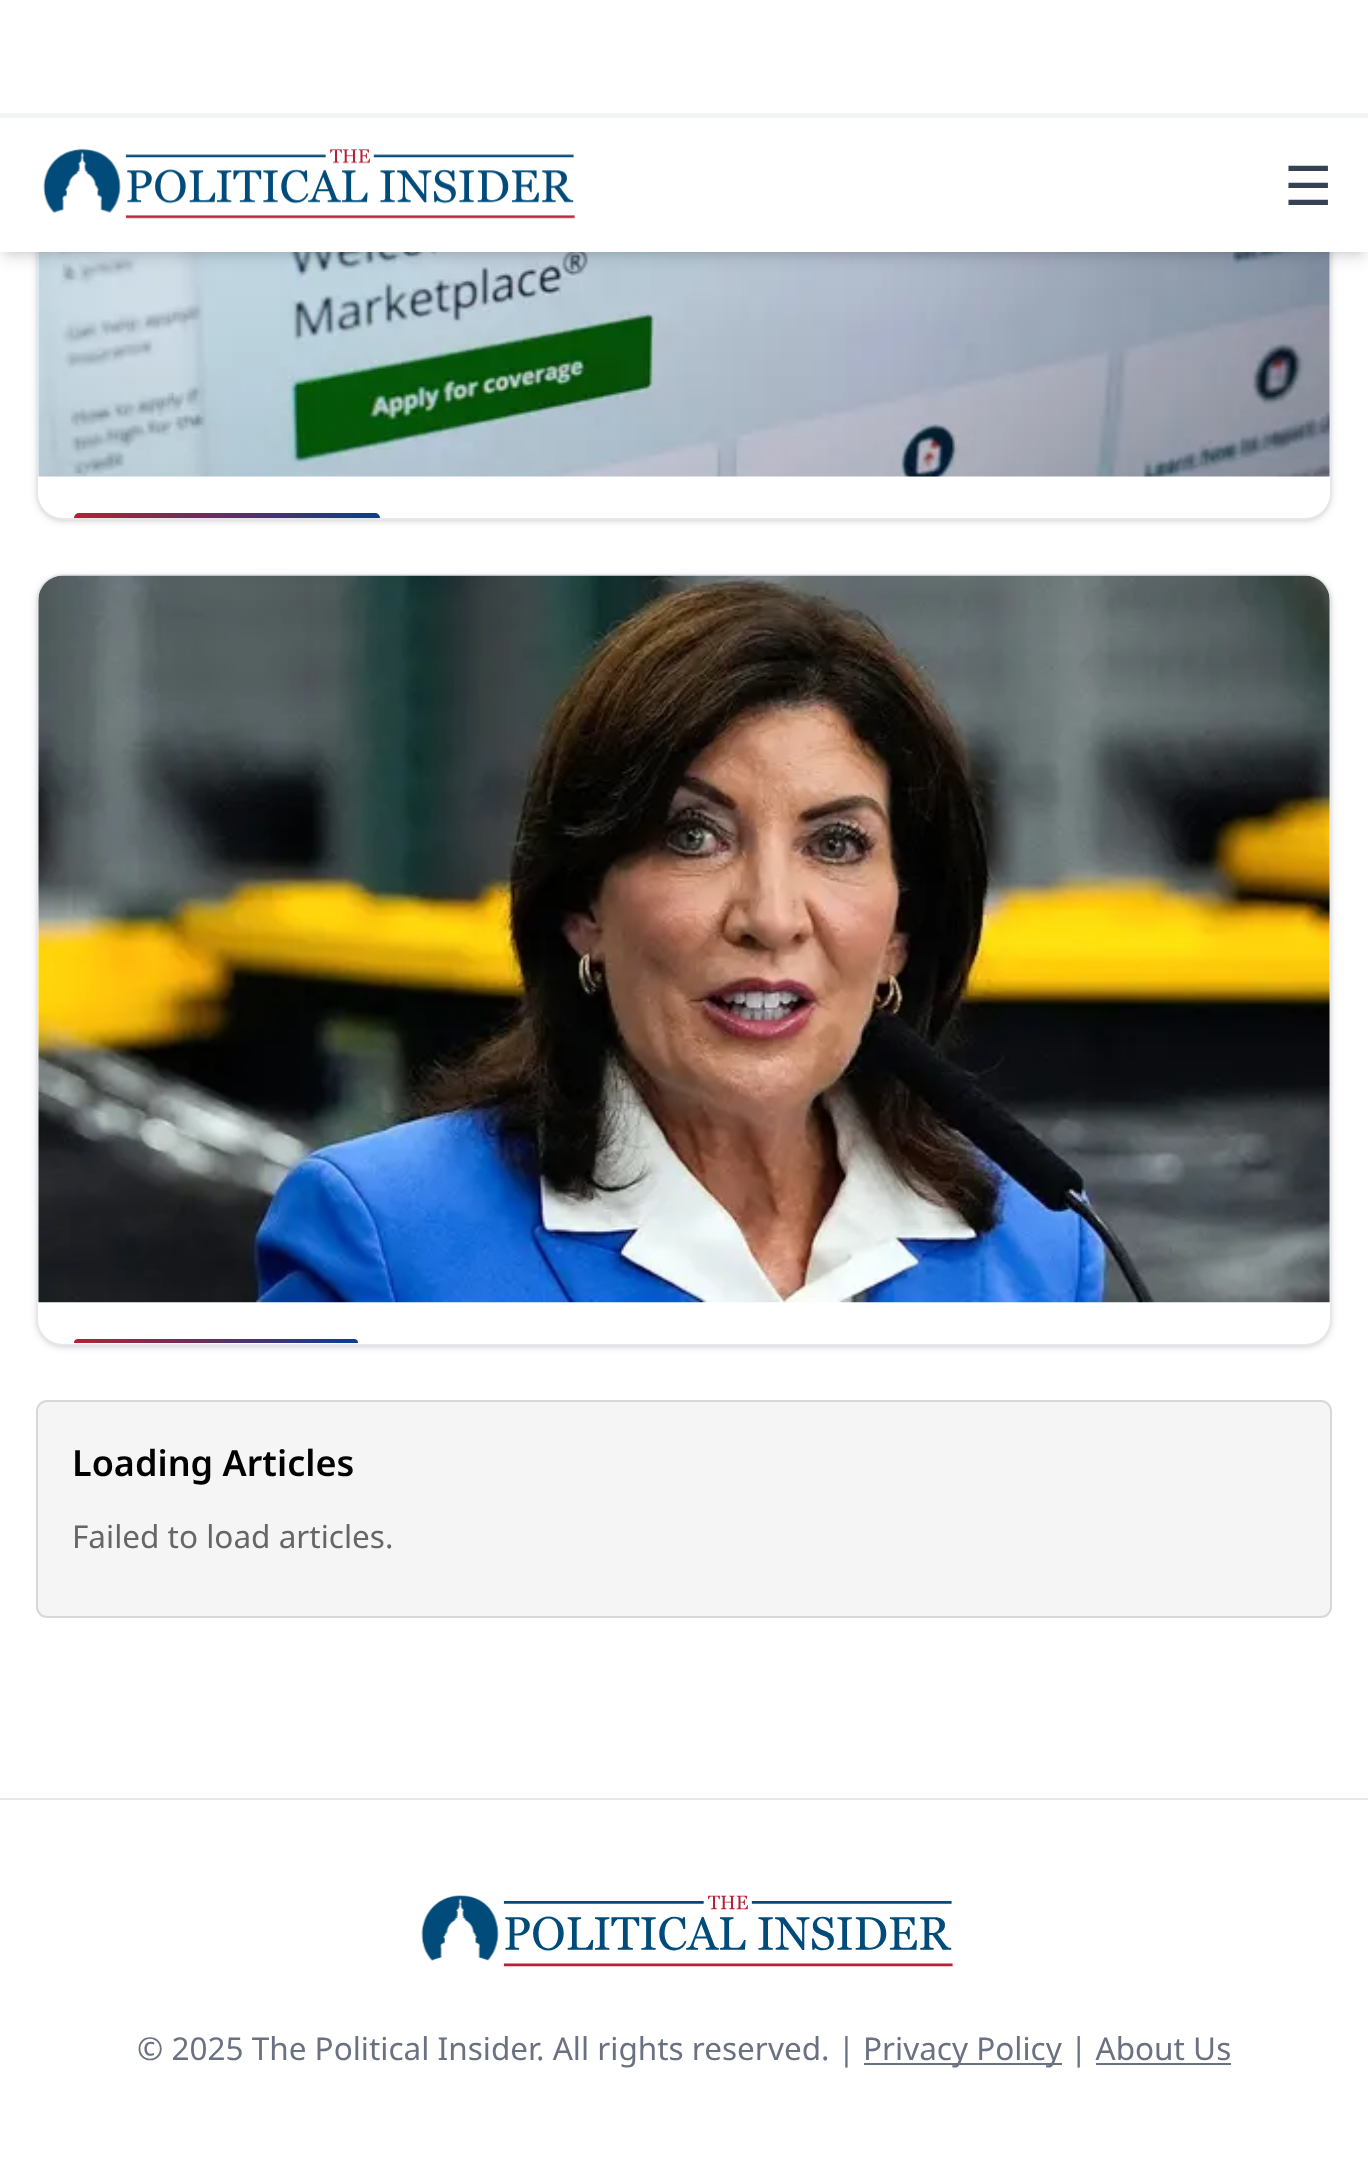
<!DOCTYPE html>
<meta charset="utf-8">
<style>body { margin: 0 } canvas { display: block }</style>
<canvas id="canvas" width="1368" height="2162"></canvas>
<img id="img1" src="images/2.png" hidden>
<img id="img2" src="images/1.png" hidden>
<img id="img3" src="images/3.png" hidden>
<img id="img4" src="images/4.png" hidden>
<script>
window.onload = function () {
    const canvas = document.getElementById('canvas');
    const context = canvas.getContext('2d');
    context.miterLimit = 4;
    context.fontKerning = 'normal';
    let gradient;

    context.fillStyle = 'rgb(255, 255, 255)';
    context.fillRect(0, 0, 1368, 2162);
    context.fillStyle = 'rgba(0, 0, 0, 0.1)';
    context.filter = 'blur(2px)';
    context.beginPath();
    context.roundRect(38, -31, 1292, 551, 25);
    context.fill();
    context.filter = 'none';
    context.filter = 'blur(3.5px)';
    context.beginPath();
    context.roundRect(36, -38, 1296, 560, 27);
    context.fill();
    context.filter = 'none';
    context.fillStyle = 'rgb(255, 255, 255)';
    context.beginPath();
    context.roundRect(37, -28, 1294, 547, 26);
    context.fill();
    context.strokeStyle = 'rgb(229, 231, 235)';
    context.lineWidth = 2;
    context.stroke();
    context.drawImage(document.getElementById('img1'), 38, 252, 1292, 225);
    context.fillStyle = 'rgba(0, 0, 0, 0.1)';
    context.filter = 'blur(4.5px)';
    context.beginPath();
    context.rect(5, 9, 1359, 243);
    context.fill();
    context.filter = 'none';
    context.filter = 'blur(7px)';
    context.beginPath();
    context.rect(2, 11, 1364, 248);
    context.fill();
    context.filter = 'none';
    context.fillStyle = 'rgb(255, 255, 255)';
    context.fillRect(0, 0, 1368, 252);
    context.fillStyle = 'rgb(243, 244, 246)';
    context.fillRect(0, 113, 1368, 5);
    context.drawImage(document.getElementById('img2'), 43, 148, 532, 71);
    gradient = context.createLinearGradient(74, 542, 380, 542);
    gradient.addColorStop(0, 'rgb(178, 34, 52)');
    gradient.addColorStop(1, 'rgb(11, 61, 145)');
    context.fillStyle = gradient;
    context.beginPath();
    context.roundRect(74, 513, 306, 5, [9, 9, 0, 0]);
    context.fill();
    context.fillStyle = 'rgba(0, 0, 0, 0.1)';
    context.filter = 'blur(2px)';
    context.beginPath();
    context.roundRect(38, 578, 1292, 768, 25);
    context.fill();
    context.filter = 'none';
    context.filter = 'blur(3.5px)';
    context.beginPath();
    context.roundRect(36, 576, 1296, 772, 27);
    context.fill();
    context.filter = 'none';
    context.fillStyle = 'rgb(255, 255, 255)';
    context.beginPath();
    context.roundRect(37, 575, 1294, 770, 26);
    context.fill();
    context.stroke();
    context.drawImage(document.getElementById('img3'), 38, 575, 1292, 728);
    gradient = context.createLinearGradient(74, 1368, 358, 1368);
    gradient.addColorStop(0, 'rgb(178, 34, 52)');
    gradient.addColorStop(1, 'rgb(11, 61, 145)');
    context.fillStyle = gradient;
    context.beginPath();
    context.roundRect(74, 1339, 284, 4, [9, 9, 0, 0]);
    context.fill();
    context.fillStyle = 'rgb(245, 245, 245)';
    context.beginPath();
    context.roundRect(37, 1401, 1294, 216, 10);
    context.fill();
    context.strokeStyle = 'rgb(216, 216, 216)';
    context.stroke();
    context.fillStyle = 'rgb(229, 231, 235)';
    context.fillRect(0, 1798, 1368, 2);
    context.drawImage(document.getElementById('img4'), 421, 1895, 532, 72);
    context.fillStyle = 'rgb(106, 114, 130)';
    context.fillRect(864, 2063, 198, 2);
    context.fillRect(1096, 2063, 135, 2);
    context.font = '54px DejaVu Sans';
    context.fillStyle = 'rgb(54, 65, 83)';
    context.fillText('☰', 1284, 205);
    context.font = '600 36px Noto Sans';
    context.fillStyle = 'rgb(0, 0, 0)';
    context.fillText('Loading Articles', 72, 1476);
    context.font = '31.5px Noto Sans';
    context.fillStyle = 'rgb(102, 102, 102)';
    context.fillText('Failed to load articles.', 72, 1548);
    context.fillStyle = 'rgb(106, 114, 130)';
    context.fillText('© 2025 The Political Insider. All rights reserved. |', 137, 2060);
    context.fillText('Privacy Policy | About Us', 863, 2060);
};
</script>
